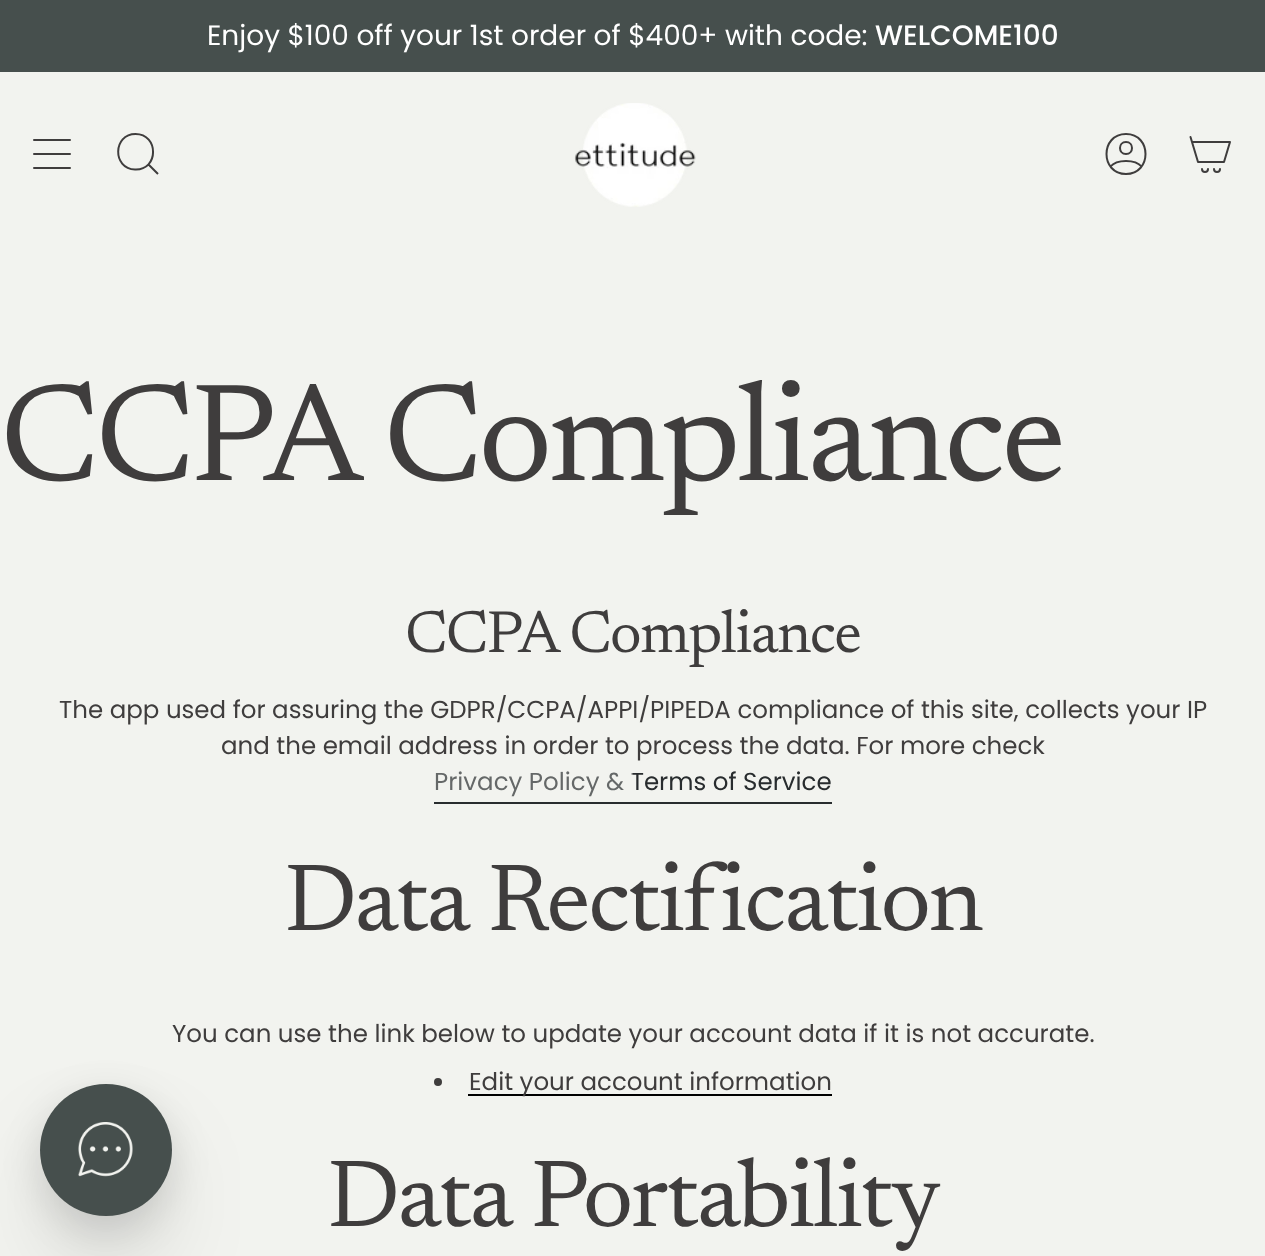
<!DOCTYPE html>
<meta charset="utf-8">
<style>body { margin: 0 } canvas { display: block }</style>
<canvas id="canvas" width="1265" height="1256"></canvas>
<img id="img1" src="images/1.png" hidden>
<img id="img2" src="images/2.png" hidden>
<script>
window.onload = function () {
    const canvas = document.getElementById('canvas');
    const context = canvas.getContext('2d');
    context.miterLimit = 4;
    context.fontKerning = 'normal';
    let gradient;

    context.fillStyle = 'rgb(242, 243, 239)';
    context.fillRect(0, 0, 1265, 1256);
    context.fillStyle = 'rgb(70, 79, 77)';
    context.fillRect(0, 0, 1265, 72);
    context.beginPath();
    context.moveTo(34, 140);
    context.lineTo(70, 140);
    context.moveTo(34, 154);
    context.lineTo(70, 154);
    context.moveTo(34, 168);
    context.lineTo(70, 168);
    context.strokeStyle = 'rgb(63, 61, 61)';
    context.lineWidth = 2;
    context.lineCap = 'round';
    context.lineJoin = 'round';
    context.stroke();
    context.beginPath();
    context.moveTo(135.5, 134);
    context.bezierCurveTo(159, 134, 159, 170.5, 135, 169.5);
    context.bezierCurveTo(112, 168.5, 113, 134, 135.5, 134);
    context.closePath();
    context.moveTo(148, 164);
    context.lineTo(158, 174);
    context.lineCap = 'butt';
    context.lineJoin = 'miter';
    context.stroke();
    context.drawImage(document.getElementById('img1'), 574, 103, 122, 104);
    context.beginPath();
    context.moveTo(1126, 134);
    context.bezierCurveTo(1100, 134, 1100, 174, 1126, 174);
    context.bezierCurveTo(1152, 174, 1152, 134, 1126, 134);
    context.closePath();
    context.moveTo(1110.5, 166.5);
    context.bezierCurveTo(1116.5, 159, 1135.5, 159, 1141.5, 166.5);
    context.moveTo(1126, 154);
    context.bezierCurveTo(1134, 154, 1134, 142, 1126, 142);
    context.bezierCurveTo(1118, 142, 1118, 154, 1126, 154);
    context.closePath();
    context.lineCap = 'round';
    context.lineJoin = 'round';
    context.stroke();
    context.beginPath();
    context.moveTo(1192, 142);
    context.lineTo(1230, 142);
    context.lineTo(1224, 162);
    context.lineTo(1198, 162);
    context.closePath();
    context.moveTo(1192, 142);
    context.lineTo(1190.5, 137);
    context.moveTo(1208, 169);
    context.bezierCurveTo(1208, 173, 1202, 173, 1202, 169);
    context.moveTo(1220, 169);
    context.bezierCurveTo(1220, 173, 1214, 173, 1214, 169);
    context.stroke();
    context.fillStyle = 'rgb(40, 44, 46)';
    context.fillRect(434, 802, 398, 2);
    context.fillStyle = 'rgb(63, 61, 61)';
    context.beginPath();
    context.arc(438, 1082, 4, 0, 2 * Math.PI);
    context.fill();
    context.fillStyle = 'rgb(0, 0, 0)';
    context.fillRect(468, 1094, 364, 2);
    context.fillStyle = 'rgba(0, 0, 0, 0.25)';
    context.filter = 'blur(50px)';
    context.beginPath();
    context.roundRect(64, 1158, 84, 84, 42);
    context.fill();
    context.filter = 'none';
    context.fillStyle = 'rgba(0, 0, 0, 0.12)';
    context.filter = 'blur(19px)';
    context.beginPath();
    context.roundRect(40, 1096, 132, 132, 66);
    context.fill();
    context.filter = 'none';
    context.fillStyle = 'rgb(70, 79, 77)';
    context.beginPath();
    context.arc(106, 1150, 66, 0, 2 * Math.PI);
    context.fill();
    context.drawImage(document.getElementById('img2'), 78, 1122, 55, 55);
    context.font = '28px Poppins';
    context.fillStyle = 'rgb(255, 255, 255)';
    context.fillText('Enjoy $100 off your 1st order of $400+ with code:', 207, 45);
    context.font = '500 28px Poppins';
    context.fillText('WELCOME100', 875, 45);
    context.letterSpacing = '-3.5px';
    context.font = '140px Newsreader';
    context.fillStyle = 'rgb(63, 61, 61)';
    context.fillText('CCPA Compliance', 0, 480);
    context.letterSpacing = '-1.5px';
    context.font = '60px Newsreader';
    context.fillText('CCPA Compliance', 405, 652);
    context.letterSpacing = '0px';
    context.font = '24.5px Poppins';
    context.fillText('The app used for assuring the GDPR/CCPA/APPI/PIPEDA compliance of this site, collects your IP', 59, 718);
    context.fillText('and the email address in order to process the data. For more check', 221, 754);
    gradient = context.createLinearGradient(434, 784, 832, 784);
    gradient.addColorStop(0, 'rgb(101, 104, 104)');
    gradient.addColorStop(0.5, 'rgb(101, 104, 104)');
    gradient.addColorStop(0.5, 'rgb(40, 44, 46)');
    gradient.addColorStop(1, 'rgb(40, 44, 46)');
    context.fillStyle = gradient;
    context.fillText('Privacy Policy & Terms of Service', 434, 790);
    context.letterSpacing = '-2.4px';
    context.font = '96px Newsreader';
    context.fillStyle = 'rgb(63, 61, 61)';
    context.fillText('Data Rectification', 284, 930);
    context.letterSpacing = '0px';
    context.font = '24.5px Poppins';
    context.fillText('You can use the link below to update your account data if it is not accurate.', 172, 1042);
    context.fillText('Edit your account information', 469, 1090);
    context.letterSpacing = '-2.4px';
    context.font = '96px Newsreader';
    context.fillText('Data Portability', 327, 1226);
};
</script>
